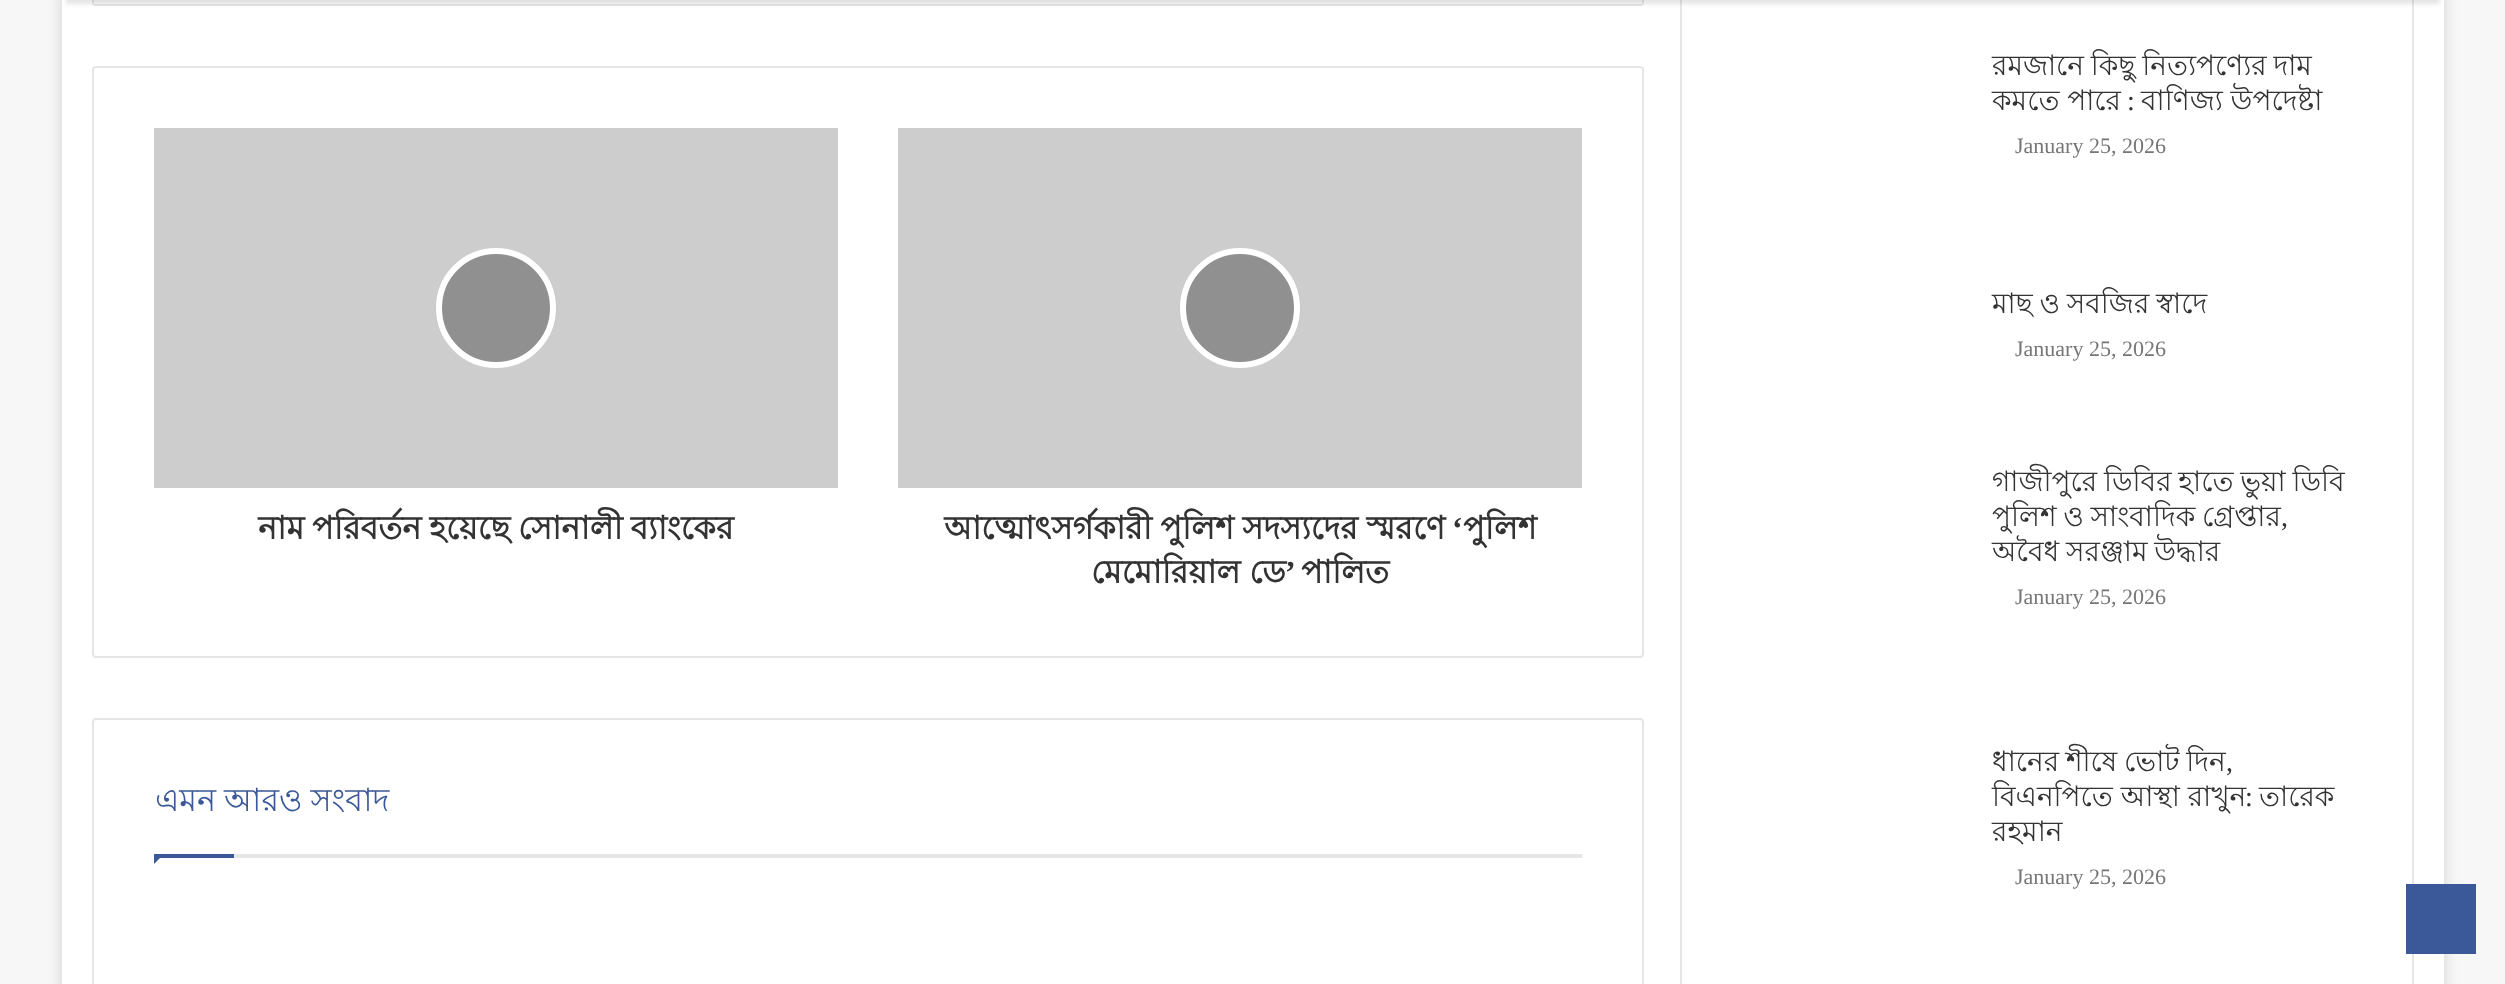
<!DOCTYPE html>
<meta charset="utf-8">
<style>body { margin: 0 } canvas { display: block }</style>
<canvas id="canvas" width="2505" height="984"></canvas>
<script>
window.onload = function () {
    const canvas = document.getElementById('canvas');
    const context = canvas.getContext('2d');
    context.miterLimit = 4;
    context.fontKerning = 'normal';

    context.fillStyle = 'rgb(247, 247, 247)';
    context.fillRect(0, 0, 2505, 984);
    context.fillStyle = 'rgba(171, 171, 171, 0.5)';
    context.filter = 'blur(7px)';
    context.beginPath();
    context.rect(62, -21, 2382, 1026);
    context.fill();
    context.filter = 'none';
    context.fillStyle = 'rgb(255, 255, 255)';
    context.fillRect(62, 0, 2382, 984);
    context.beginPath();
    context.roundRect(93, -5, 1550, 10, 3);
    context.strokeStyle = 'rgb(230, 230, 230)';
    context.lineWidth = 2;
    context.stroke();
    context.fillStyle = 'rgb(250, 250, 250)';
    context.fillRect(94, 0, 1548, 4);
    context.strokeRect(1681, -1, 732, 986);
    context.fillStyle = 'rgba(0, 0, 0, 0.1)';
    context.filter = 'blur(2px)';
    context.beginPath();
    context.rect(66, -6, 2374, 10);
    context.fill();
    context.filter = 'none';
    context.beginPath();
    context.roundRect(93, 67, 1550, 590, 3);
    context.stroke();
    context.fillStyle = 'rgb(205, 205, 205)';
    context.fillRect(154, 128, 684, 360);
    context.fillStyle = 'rgb(144, 144, 144)';
    context.beginPath();
    context.arc(496, 308, 57, 0, 2 * Math.PI);
    context.fill();
    context.strokeStyle = 'rgb(255, 255, 255)';
    context.lineWidth = 6;
    context.stroke();
    context.fillStyle = 'rgb(205, 205, 205)';
    context.fillRect(898, 128, 684, 360);
    context.fillStyle = 'rgb(144, 144, 144)';
    context.beginPath();
    context.arc(1240, 308, 57, 0, 2 * Math.PI);
    context.fill();
    context.stroke();
    context.beginPath();
    context.roundRect(93, 719, 1550, 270, 3);
    context.strokeStyle = 'rgb(230, 230, 230)';
    context.lineWidth = 2;
    context.stroke();
    context.fillStyle = 'rgb(230, 230, 230)';
    context.fillRect(234, 854, 1348, 4);
    context.fillStyle = 'rgb(59, 89, 152)';
    context.beginPath();
    context.moveTo(154, 854);
    context.lineTo(164, 854);
    context.lineTo(154, 864);
    context.closePath();
    context.fill();
    context.fillRect(154, 854, 80, 4);
    context.fillRect(2406, 884, 70, 70);
    context.wordSpacing = '-1px';
    context.font = 'bold 32px Lohit Bengali';
    context.fillStyle = 'rgb(51, 51, 51)';
    context.fillText('নাম পরিবর্তন হয়েছে সোনালী ব্যাংকের', 258, 539);
    context.wordSpacing = '-0.5px';
    context.fillText('আত্মোৎসর্গকারী পুলিশ সদস্যদের স্মরণে', 944, 539);
    context.wordSpacing = '0px';
    context.font = 'bold 32px Liberation Serif';
    context.fillText('‘', 1452, 539);
    context.font = 'bold 32px Lohit Bengali';
    context.fillText('পুলিশ', 1463, 539);
    context.fillText('মেমোরিয়াল ডে', 1091, 583);
    context.font = 'bold 32px Liberation Serif';
    context.fillText('’', 1285, 583);
    context.font = 'bold 32px Lohit Bengali';
    context.fillText('পালিত', 1301, 583);
    context.wordSpacing = '-1px';
    context.font = '32px Lohit Bengali';
    context.fillStyle = 'rgb(59, 89, 152)';
    context.fillText('এমন আরও সংবাদ', 155, 811);
    context.font = '28px Lohit Bengali';
    context.fillStyle = 'rgb(51, 51, 51)';
    context.fillText('রমজানে কিছু নিত্যপণ্যের দাম', 1992, 75);
    context.wordSpacing = '0px';
    context.fillText('কমতে পারে', 1992, 110);
    context.font = '28px Liberation Serif';
    context.fillText(':', 2127, 110);
    context.font = '28px Lohit Bengali';
    context.fillText('বাণিজ্য উপদেষ্টা', 2141, 110);
    context.font = '22px Liberation Serif';
    context.fillStyle = 'rgb(118, 118, 118)';
    context.fillText('January 25, 2026', 2015, 153);
    context.wordSpacing = '-1px';
    context.font = '28px Lohit Bengali';
    context.fillStyle = 'rgb(51, 51, 51)';
    context.fillText('মাছ ও সবজির স্বাদে', 1992, 313);
    context.wordSpacing = '0px';
    context.font = '22px Liberation Serif';
    context.fillStyle = 'rgb(118, 118, 118)';
    context.fillText('January 25, 2026', 2015, 356);
    context.wordSpacing = '-1px';
    context.font = '28px Lohit Bengali';
    context.fillStyle = 'rgb(51, 51, 51)';
    context.fillText('গাজীপুরে ডিবির হাতে ভুয়া ডিবি', 1992, 491);
    context.fillText('পুলিশ ও সাংবাদিক গ্রেপ্তার', 1992, 526);
    context.wordSpacing = '0px';
    context.font = '28px Liberation Serif';
    context.fillText(',', 2281, 526);
    context.wordSpacing = '-1px';
    context.font = '28px Lohit Bengali';
    context.fillText('অবৈধ সরঞ্জাম উদ্ধার', 1992, 561);
    context.wordSpacing = '0px';
    context.font = '22px Liberation Serif';
    context.fillStyle = 'rgb(118, 118, 118)';
    context.fillText('January 25, 2026', 2015, 604);
    context.wordSpacing = '-1px';
    context.font = '28px Lohit Bengali';
    context.fillStyle = 'rgb(51, 51, 51)';
    context.fillText('ধানের শীষে ভোট দিন', 1992, 771);
    context.wordSpacing = '0px';
    context.font = '28px Liberation Serif';
    context.fillText(',', 2226, 771);
    context.font = '28px Lohit Bengali';
    context.fillText('বিএনপিতে আস্থা রাখুন', 1992, 806);
    context.font = '28px Liberation Serif';
    context.fillText(':', 2245, 806);
    context.font = '28px Lohit Bengali';
    context.fillText('তারেক', 2259, 806);
    context.fillText('রহমান', 1992, 841);
    context.font = '22px Liberation Serif';
    context.fillStyle = 'rgb(118, 118, 118)';
    context.fillText('January 25, 2026', 2015, 884);
};
</script>
